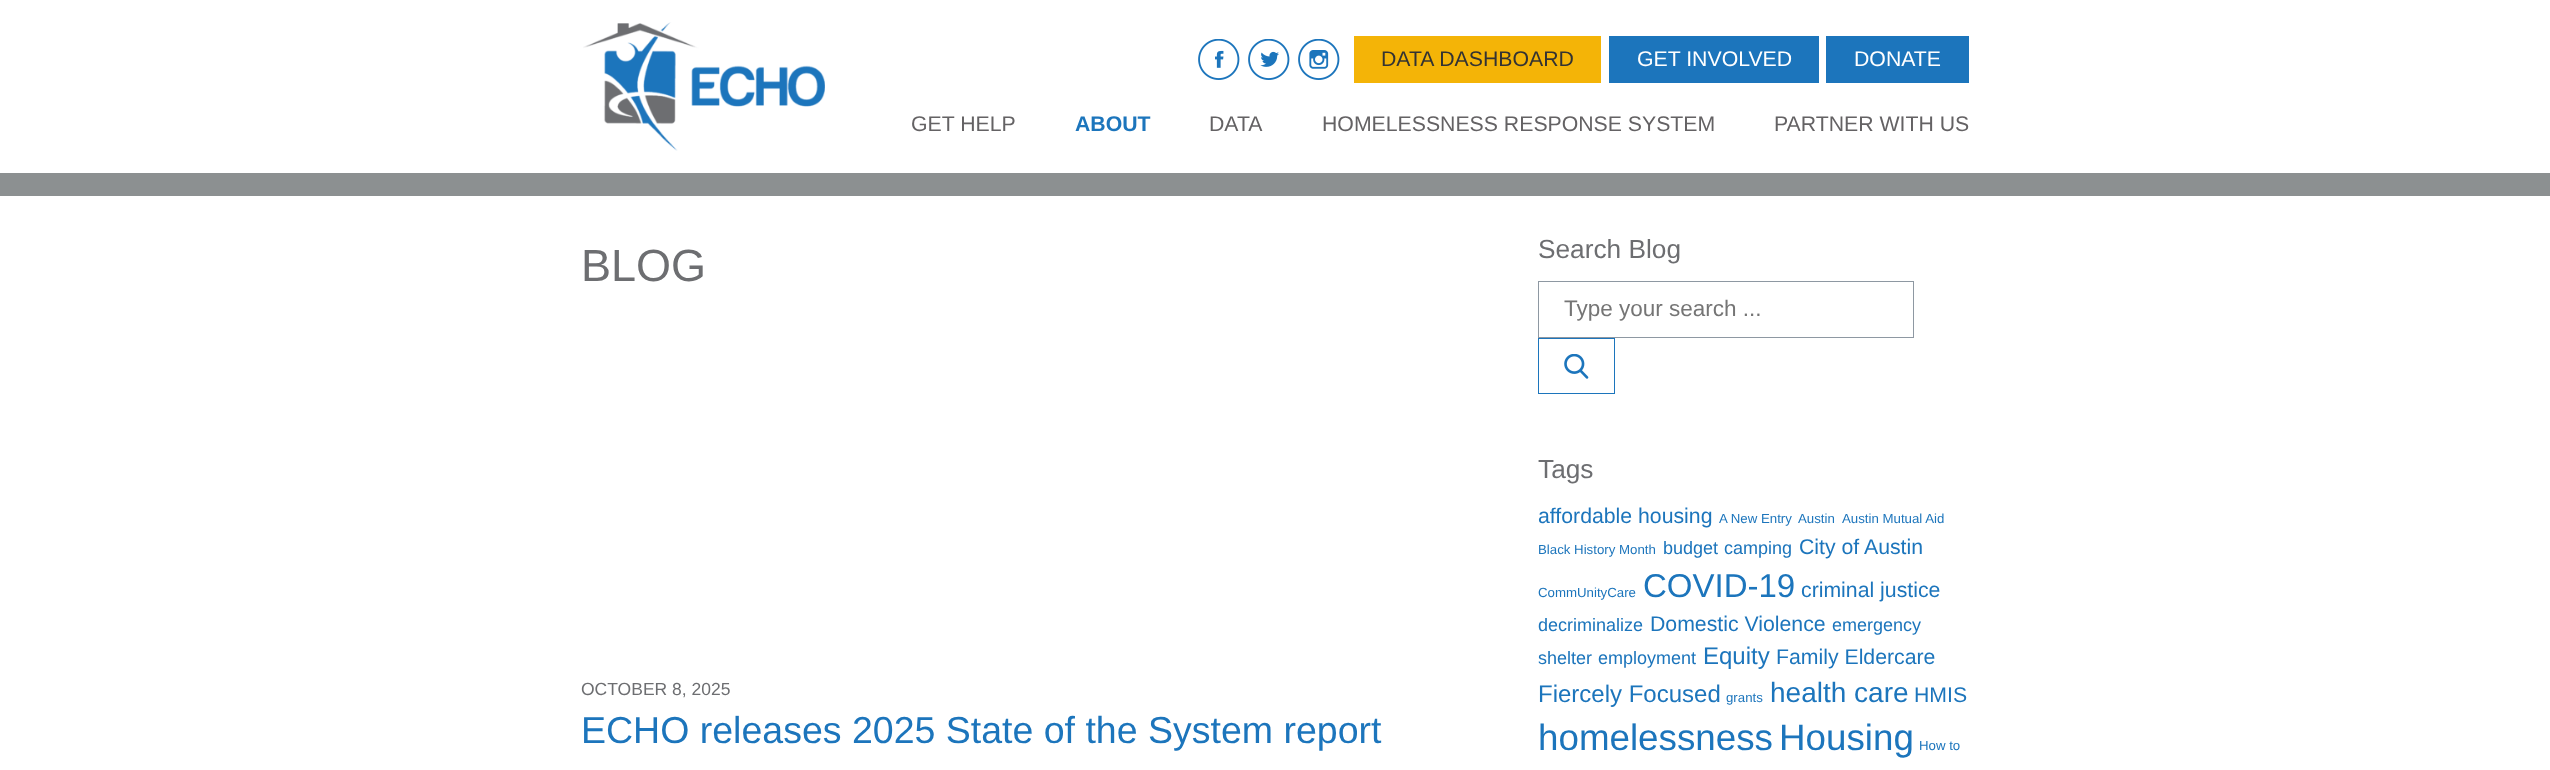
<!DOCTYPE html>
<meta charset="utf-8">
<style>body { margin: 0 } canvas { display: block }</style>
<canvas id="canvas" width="2550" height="770"></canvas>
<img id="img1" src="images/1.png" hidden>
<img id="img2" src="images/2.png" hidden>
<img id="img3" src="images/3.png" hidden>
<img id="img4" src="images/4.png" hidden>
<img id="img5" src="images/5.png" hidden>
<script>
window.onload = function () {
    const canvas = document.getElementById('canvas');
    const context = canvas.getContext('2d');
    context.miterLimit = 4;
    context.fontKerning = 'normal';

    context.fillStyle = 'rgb(255, 255, 255)';
    context.fillRect(0, 0, 2550, 770);
    context.drawImage(document.getElementById('img1'), 583, 22, 242, 129);
    context.drawImage(document.getElementById('img2'), 1198, 39, 42, 41);
    context.drawImage(document.getElementById('img3'), 1248, 39, 42, 41);
    context.drawImage(document.getElementById('img4'), 1298, 39, 42, 41);
    context.fillStyle = 'rgb(244, 180, 7)';
    context.fillRect(1354, 36, 247, 47);
    context.fillStyle = 'rgb(28, 117, 188)';
    context.fillRect(1609, 36, 210, 47);
    context.fillRect(1826, 36, 143, 47);
    context.fillStyle = 'rgb(140, 144, 145)';
    context.fillRect(0, 173, 2550, 23);
    context.strokeStyle = 'rgb(142, 152, 162)';
    context.strokeRect(1538.5, 281.5, 375, 56);
    context.strokeStyle = 'rgb(28, 117, 188)';
    context.strokeRect(1538.5, 338.5, 76, 55);
    context.drawImage(document.getElementById('img5'), 1564, 354, 25, 25);
    context.font = '21.25px Arimo';
    context.fillStyle = 'rgb(51, 51, 51)';
    context.fillText('DATA DASHBOARD', 1381, 66);
    context.fillStyle = 'rgb(255, 255, 255)';
    context.fillText('GET INVOLVED', 1637, 66);
    context.fillText('DONATE', 1854, 66);
    context.fillStyle = 'rgb(100, 98, 100)';
    context.fillText('GET HELP', 911, 131);
    context.font = 'bold 21.25px Arimo';
    context.fillStyle = 'rgb(28, 117, 188)';
    context.fillText('ABOUT', 1075, 131);
    context.font = '21.25px Arimo';
    context.fillStyle = 'rgb(100, 98, 100)';
    context.fillText('DATA', 1209, 131);
    context.fillText('HOMELESSNESS RESPONSE SYSTEM', 1322, 131);
    context.fillText('PARTNER WITH US', 1774, 131);
    context.font = '45px Arimo';
    context.fillStyle = 'rgb(109, 110, 113)';
    context.fillText('BLOG', 581, 281);
    context.font = '17.5px Arimo';
    context.fillText('OCTOBER 8, 2025', 581, 695);
    context.font = '37.5px Arimo';
    context.fillStyle = 'rgb(28, 117, 188)';
    context.fillText('ECHO releases 2025 State of the System report', 581, 743);
    context.font = '26.25px Arimo';
    context.fillStyle = 'rgb(109, 110, 113)';
    context.fillText('Search Blog', 1538, 258);
    context.font = '22.5px Arimo';
    context.fillStyle = 'rgb(117, 117, 117)';
    context.fillText('Type your search ...', 1564, 316);
    context.font = '26.25px Arimo';
    context.fillStyle = 'rgb(109, 110, 113)';
    context.fillText('Tags', 1538, 478);
    context.font = '21.25px Arimo';
    context.fillStyle = 'rgb(28, 117, 188)';
    context.fillText('affordable housing', 1538, 523);
    context.font = '13.25px Arimo';
    context.fillText('A New Entry', 1719, 523);
    context.fillText('Austin', 1798, 523);
    context.fillText('Austin Mutual Aid', 1842, 523);
    context.fillText('Black History Month', 1538, 554);
    context.font = '18px Arimo';
    context.fillText('budget', 1663, 554);
    context.fillText('camping', 1724, 554);
    context.font = '21.25px Arimo';
    context.fillText('City of Austin', 1799, 554);
    context.font = '13.25px Arimo';
    context.fillText('CommUnityCare', 1538, 597);
    context.font = '33px Arimo';
    context.fillText('COVID-19', 1643, 597);
    context.font = '21.25px Arimo';
    context.fillText('criminal justice', 1801, 597);
    context.font = '18px Arimo';
    context.fillText('decriminalize', 1538, 631);
    context.font = '21.25px Arimo';
    context.fillText('Domestic Violence', 1650, 631);
    context.font = '18px Arimo';
    context.fillText('emergency', 1832, 631);
    context.fillText('shelter', 1538, 664);
    context.fillText('employment', 1598, 664);
    context.font = '24px Arimo';
    context.fillText('Equity', 1703, 664);
    context.font = '21.25px Arimo';
    context.fillText('Family Eldercare', 1776, 664);
    context.font = '24px Arimo';
    context.fillText('Fiercely Focused', 1538, 702);
    context.font = '13.25px Arimo';
    context.fillText('grants', 1726, 702);
    context.font = '28px Arimo';
    context.fillText('health care', 1770, 702);
    context.font = '21.25px Arimo';
    context.fillText('HMIS', 1914, 702);
    context.font = '36.75px Arimo';
    context.fillText('homelessness', 1538, 750);
    context.fillText('Housing', 1779, 750);
    context.font = '13.25px Arimo';
    context.fillText('How to', 1919, 750);
};
</script>
